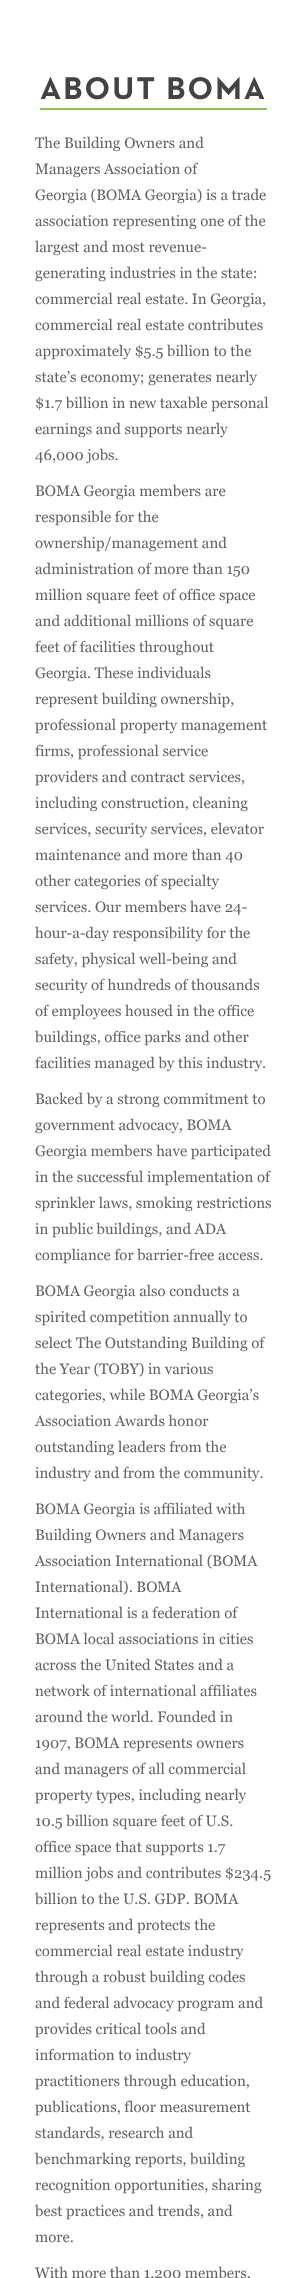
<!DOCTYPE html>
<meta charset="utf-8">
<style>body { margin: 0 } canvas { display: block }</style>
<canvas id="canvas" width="307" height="2278"></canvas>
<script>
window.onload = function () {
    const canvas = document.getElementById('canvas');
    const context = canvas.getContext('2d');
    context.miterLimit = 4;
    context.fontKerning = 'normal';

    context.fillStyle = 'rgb(255, 255, 255)';
    context.fillRect(0, 0, 307, 2278);
    context.fillStyle = 'rgb(141, 197, 72)';
    context.fillRect(40, 108, 227, 2);
    context.letterSpacing = '2px';
    context.font = 'bold 32px "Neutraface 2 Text"';
    context.fillStyle = 'rgb(67, 67, 67)';
    context.fillText('ABOUT BOMA', 40, 99);
    context.letterSpacing = '0px';
    context.font = '15px Georgia';
    context.fillStyle = 'rgb(99, 99, 99)';
    context.fillText('The Building Owners and', 35, 148);
    context.fillText('Managers Association of', 35, 174);
    context.fillText('Georgia (BOMA Georgia) is a trade', 35, 200);
    context.fillText('association representing one of the', 35, 226);
    context.fillText('largest and most revenue-', 35, 252);
    context.fillText('generating industries in the state:', 35, 278);
    context.fillText('commercial real estate. In Georgia,', 35, 304);
    context.fillText('commercial real estate contributes', 35, 330);
    context.fillText('approximately $5.5 billion to the', 35, 356);
    context.fillText('state’s economy; generates nearly', 35, 382);
    context.fillText('$1.7 billion in new taxable personal', 35, 408);
    context.fillText('earnings and supports nearly', 35, 434);
    context.fillText('46,000 jobs.', 35, 460);
    context.fillText('BOMA Georgia members are', 35, 496);
    context.fillText('responsible for the', 35, 522);
    context.fillText('ownership/management and', 35, 548);
    context.fillText('administration of more than 150', 35, 574);
    context.fillText('million square feet of office space', 35, 600);
    context.fillText('and additional millions of square', 35, 626);
    context.fillText('feet of facilities throughout', 35, 652);
    context.fillText('Georgia. These individuals', 35, 678);
    context.fillText('represent building ownership,', 35, 704);
    context.fillText('professional property management', 35, 730);
    context.fillText('firms, professional service', 35, 756);
    context.fillText('providers and contract services,', 35, 782);
    context.fillText('including construction, cleaning', 35, 808);
    context.fillText('services, security services, elevator', 35, 834);
    context.fillText('maintenance and more than 40', 35, 860);
    context.fillText('other categories of specialty', 35, 886);
    context.fillText('services. Our members have 24-', 35, 912);
    context.fillText('hour-a-day responsibility for the', 35, 938);
    context.fillText('safety, physical well-being and', 35, 964);
    context.fillText('security of hundreds of thousands', 35, 990);
    context.fillText('of employees housed in the office', 35, 1016);
    context.fillText('buildings, office parks and other', 35, 1042);
    context.fillText('facilities managed by this industry.', 35, 1068);
    context.fillText('Backed by a strong commitment to', 35, 1104);
    context.fillText('government advocacy, BOMA', 35, 1130);
    context.fillText('Georgia members have participated', 35, 1156);
    context.fillText('in the successful implementation of', 35, 1182);
    context.fillText('sprinkler laws, smoking restrictions', 35, 1208);
    context.fillText('in public buildings, and ADA', 35, 1234);
    context.fillText('compliance for barrier-free access.', 35, 1260);
    context.fillText('BOMA Georgia also conducts a', 35, 1296);
    context.fillText('spirited competition annually to', 35, 1322);
    context.fillText('select The Outstanding Building of', 35, 1348);
    context.fillText('the Year (TOBY) in various', 35, 1374);
    context.fillText('categories, while BOMA Georgia’s', 35, 1400);
    context.fillText('Association Awards honor', 35, 1426);
    context.fillText('outstanding leaders from the', 35, 1452);
    context.fillText('industry and from the community.', 35, 1478);
    context.fillText('BOMA Georgia is affiliated with', 35, 1514);
    context.fillText('Building Owners and Managers', 35, 1540);
    context.fillText('Association International (BOMA', 35, 1566);
    context.fillText('International). BOMA', 35, 1592);
    context.fillText('International is a federation of', 35, 1618);
    context.fillText('BOMA local associations in cities', 35, 1644);
    context.fillText('across the United States and a', 35, 1670);
    context.fillText('network of international affiliates', 35, 1696);
    context.fillText('around the world. Founded in', 35, 1722);
    context.fillText('1907, BOMA represents owners', 35, 1748);
    context.fillText('and managers of all commercial', 35, 1774);
    context.fillText('property types, including nearly', 35, 1800);
    context.fillText('10.5 billion square feet of U.S.', 35, 1826);
    context.fillText('office space that supports 1.7', 35, 1852);
    context.fillText('million jobs and contributes $234.5', 35, 1878);
    context.fillText('billion to the U.S. GDP. BOMA', 35, 1904);
    context.fillText('represents and protects the', 35, 1930);
    context.fillText('commercial real estate industry', 35, 1956);
    context.fillText('through a robust building codes', 35, 1982);
    context.fillText('and federal advocacy program and', 35, 2008);
    context.fillText('provides critical tools and', 35, 2034);
    context.fillText('information to industry', 35, 2060);
    context.fillText('practitioners through education,', 35, 2086);
    context.fillText('publications, floor measurement', 35, 2112);
    context.fillText('standards, research and', 35, 2138);
    context.fillText('benchmarking reports, building', 35, 2164);
    context.fillText('recognition opportunities, sharing', 35, 2190);
    context.fillText('best practices and trends, and', 35, 2216);
    context.fillText('more.', 35, 2242);
    context.fillText('With more than 1,200 members,', 35, 2278);
};
</script>
